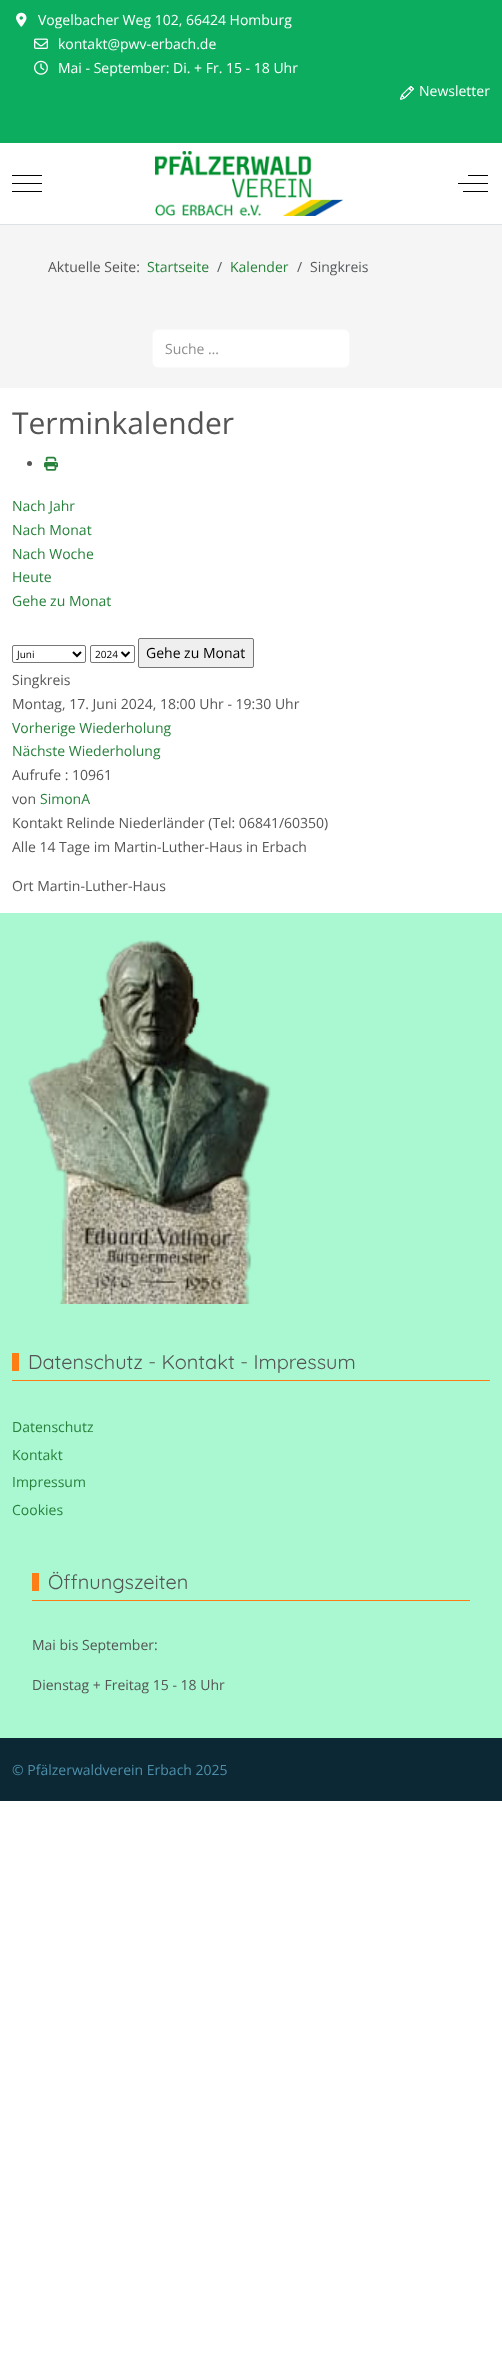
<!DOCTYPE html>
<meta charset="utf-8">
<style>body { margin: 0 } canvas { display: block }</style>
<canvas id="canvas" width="502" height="2370"></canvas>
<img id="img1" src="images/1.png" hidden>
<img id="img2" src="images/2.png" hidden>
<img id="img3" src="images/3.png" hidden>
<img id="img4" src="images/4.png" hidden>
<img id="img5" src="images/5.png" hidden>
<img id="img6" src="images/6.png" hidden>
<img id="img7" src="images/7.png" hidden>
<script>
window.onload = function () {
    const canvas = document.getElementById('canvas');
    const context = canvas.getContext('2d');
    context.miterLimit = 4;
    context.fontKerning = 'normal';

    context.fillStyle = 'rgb(255, 255, 255)';
    context.fillRect(0, 0, 502, 2370);
    context.fillStyle = 'rgb(12, 173, 95)';
    context.fillRect(0, 0, 502, 143);
    context.drawImage(document.getElementById('img1'), 16, 12, 11, 15);
    context.drawImage(document.getElementById('img2'), 34, 38, 14, 11);
    context.drawImage(document.getElementById('img3'), 34, 60, 14, 15);
    context.drawImage(document.getElementById('img4'), 400, 86, 14, 14);
    context.fillStyle = 'rgb(222, 226, 230)';
    context.fillRect(0, 224, 502, 1);
    context.fillStyle = 'rgb(0, 0, 0)';
    context.fillRect(12, 183, 30, 1);
    context.fillRect(12, 175, 30, 1);
    context.fillRect(12, 191, 30, 1);
    context.drawImage(document.getElementById('img5'), 155, 151, 188, 65);
    context.fillRect(458, 183, 30, 1);
    context.fillRect(468, 175, 20, 1);
    context.fillRect(463, 191, 25, 1);
    context.fillStyle = 'rgb(245, 245, 245)';
    context.fillRect(0, 225, 502, 163);
    context.fillStyle = 'rgb(255, 255, 255)';
    context.beginPath();
    context.roundRect(152.5, 329.5, 197, 38, 5.5);
    context.fill();
    context.strokeStyle = 'rgb(248, 249, 250)';
    context.stroke();
    context.fillStyle = 'rgb(85, 85, 85)';
    context.beginPath();
    context.arc(29.5, 463.5, 2.5, 0, 2 * Math.PI);
    context.fill();
    context.drawImage(document.getElementById('img6'), 44, 456, 14, 15);
    context.beginPath();
    context.roundRect(12.5, 645.5, 73, 17, 1.5);
    context.strokeStyle = 'rgb(118, 118, 118)';
    context.stroke();
    context.beginPath();
    context.moveTo(73, 652);
    context.lineTo(77, 656);
    context.lineTo(81, 652);
    context.strokeStyle = 'rgb(0, 0, 0)';
    context.lineWidth = 2;
    context.stroke();
    context.beginPath();
    context.roundRect(90.5, 645.5, 44, 17, 1.5);
    context.strokeStyle = 'rgb(118, 118, 118)';
    context.lineWidth = 1;
    context.stroke();
    context.beginPath();
    context.moveTo(121.5, 652);
    context.lineTo(125.5, 656);
    context.lineTo(129.5, 652);
    context.strokeStyle = 'rgb(0, 0, 0)';
    context.lineWidth = 2;
    context.stroke();
    context.fillStyle = 'rgb(239, 239, 239)';
    context.beginPath();
    context.roundRect(138.5, 638.5, 115, 29, 1.5);
    context.fill();
    context.strokeStyle = 'rgb(118, 118, 118)';
    context.lineWidth = 1;
    context.stroke();
    context.fillStyle = 'rgb(169, 248, 210)';
    context.fillRect(0, 913, 502, 825);
    context.drawImage(document.getElementById('img7'), 28, 940, 243, 364);
    context.fillStyle = 'rgb(253, 126, 20)';
    context.fillRect(12, 1380, 478, 1);
    context.fillRect(12, 1353, 7, 18);
    context.fillRect(32, 1600, 438, 1);
    context.fillRect(32, 1573, 7, 18);
    context.fillStyle = 'rgb(11, 40, 52)';
    context.fillRect(0, 1738, 502, 63);
    context.font = '14px Open Sans';
    context.fillStyle = 'rgb(255, 255, 255)';
    context.fillText('Vogelbacher Weg 102, 66424 Homburg', 38, 25);
    context.fillText('kontakt@pwv-erbach.de', 58, 49);
    context.fillText('Mai - September: Di. + Fr. 15 - 18 Uhr', 58, 73);
    context.fillText('Newsletter', 419, 96);
    context.fillStyle = 'rgb(85, 85, 85)';
    context.fillText('Aktuelle Seite:', 48, 272);
    context.fillStyle = 'rgb(40, 130, 60)';
    context.fillText('Startseite', 147, 272);
    context.fillStyle = 'rgb(86, 89, 92)';
    context.fillText('/', 217, 272);
    context.fillStyle = 'rgb(40, 130, 60)';
    context.fillText('Kalender', 230, 272);
    context.fillStyle = 'rgb(86, 89, 92)';
    context.fillText('/', 297, 272);
    context.fillText('Singkreis', 310, 272);
    context.fillStyle = 'rgb(142, 142, 142)';
    context.fillText('Suche …', 165, 354);
    context.font = '30px Open Sans';
    context.fillStyle = 'rgb(85, 85, 85)';
    context.fillText('Terminkalender', 12, 434);
    context.font = '14px Open Sans';
    context.fillStyle = 'rgb(40, 130, 60)';
    context.fillText('Nach Jahr', 12, 511);
    context.fillText('Nach Monat', 12, 535);
    context.fillText('Nach Woche', 12, 559);
    context.fillText('Heute', 12, 582);
    context.fillText('Gehe zu Monat', 12, 606);
    context.font = '10px Open Sans';
    context.fillStyle = 'rgb(0, 0, 0)';
    context.fillText('Juni', 17, 658);
    context.fillText('2024', 95, 658);
    context.font = '14px Open Sans';
    context.fillText('Gehe zu Monat', 146, 658);
    context.fillStyle = 'rgb(85, 85, 85)';
    context.fillText('Singkreis', 12, 685);
    context.fillText('Montag, 17. Juni 2024, 18:00 Uhr - 19:30 Uhr', 12, 709);
    context.fillStyle = 'rgb(40, 130, 60)';
    context.fillText('Vorherige Wiederholung', 12, 733);
    context.fillText('Nächste Wiederholung', 12, 756);
    context.fillStyle = 'rgb(85, 85, 85)';
    context.fillText('Aufrufe : 10961', 12, 780);
    context.fillText('von', 12, 804);
    context.fillStyle = 'rgb(40, 130, 60)';
    context.fillText('SimonA', 40, 804);
    context.fillStyle = 'rgb(85, 85, 85)';
    context.fillText('Kontakt Relinde Niederländer (Tel: 06841/60350)', 12, 828);
    context.fillText('Alle 14 Tage im Martin-Luther-Haus in Erbach', 12, 852);
    context.fillText('Ort Martin-Luther-Haus', 12, 891);
    context.font = '300 20px Quicksand';
    context.fillText('Datenschutz - Kontakt - Impressum', 28, 1369);
    context.font = '14px Open Sans';
    context.fillStyle = 'rgb(40, 130, 60)';
    context.fillText('Datenschutz', 12, 1432);
    context.fillText('Kontakt', 12, 1460);
    context.fillText('Impressum', 12, 1487);
    context.fillText('Cookies', 12, 1515);
    context.font = '300 20px Quicksand';
    context.fillStyle = 'rgb(85, 85, 85)';
    context.fillText('Öffnungszeiten', 48, 1589);
    context.font = '14px Open Sans';
    context.fillText('Mai bis September:', 32, 1650);
    context.fillText('Dienstag + Freitag 15 - 18 Uhr', 32, 1690);
    context.fillStyle = 'rgb(79, 143, 170)';
    context.fillText('© Pfälzerwaldverein Erbach 2025', 12, 1775);
};
</script>
